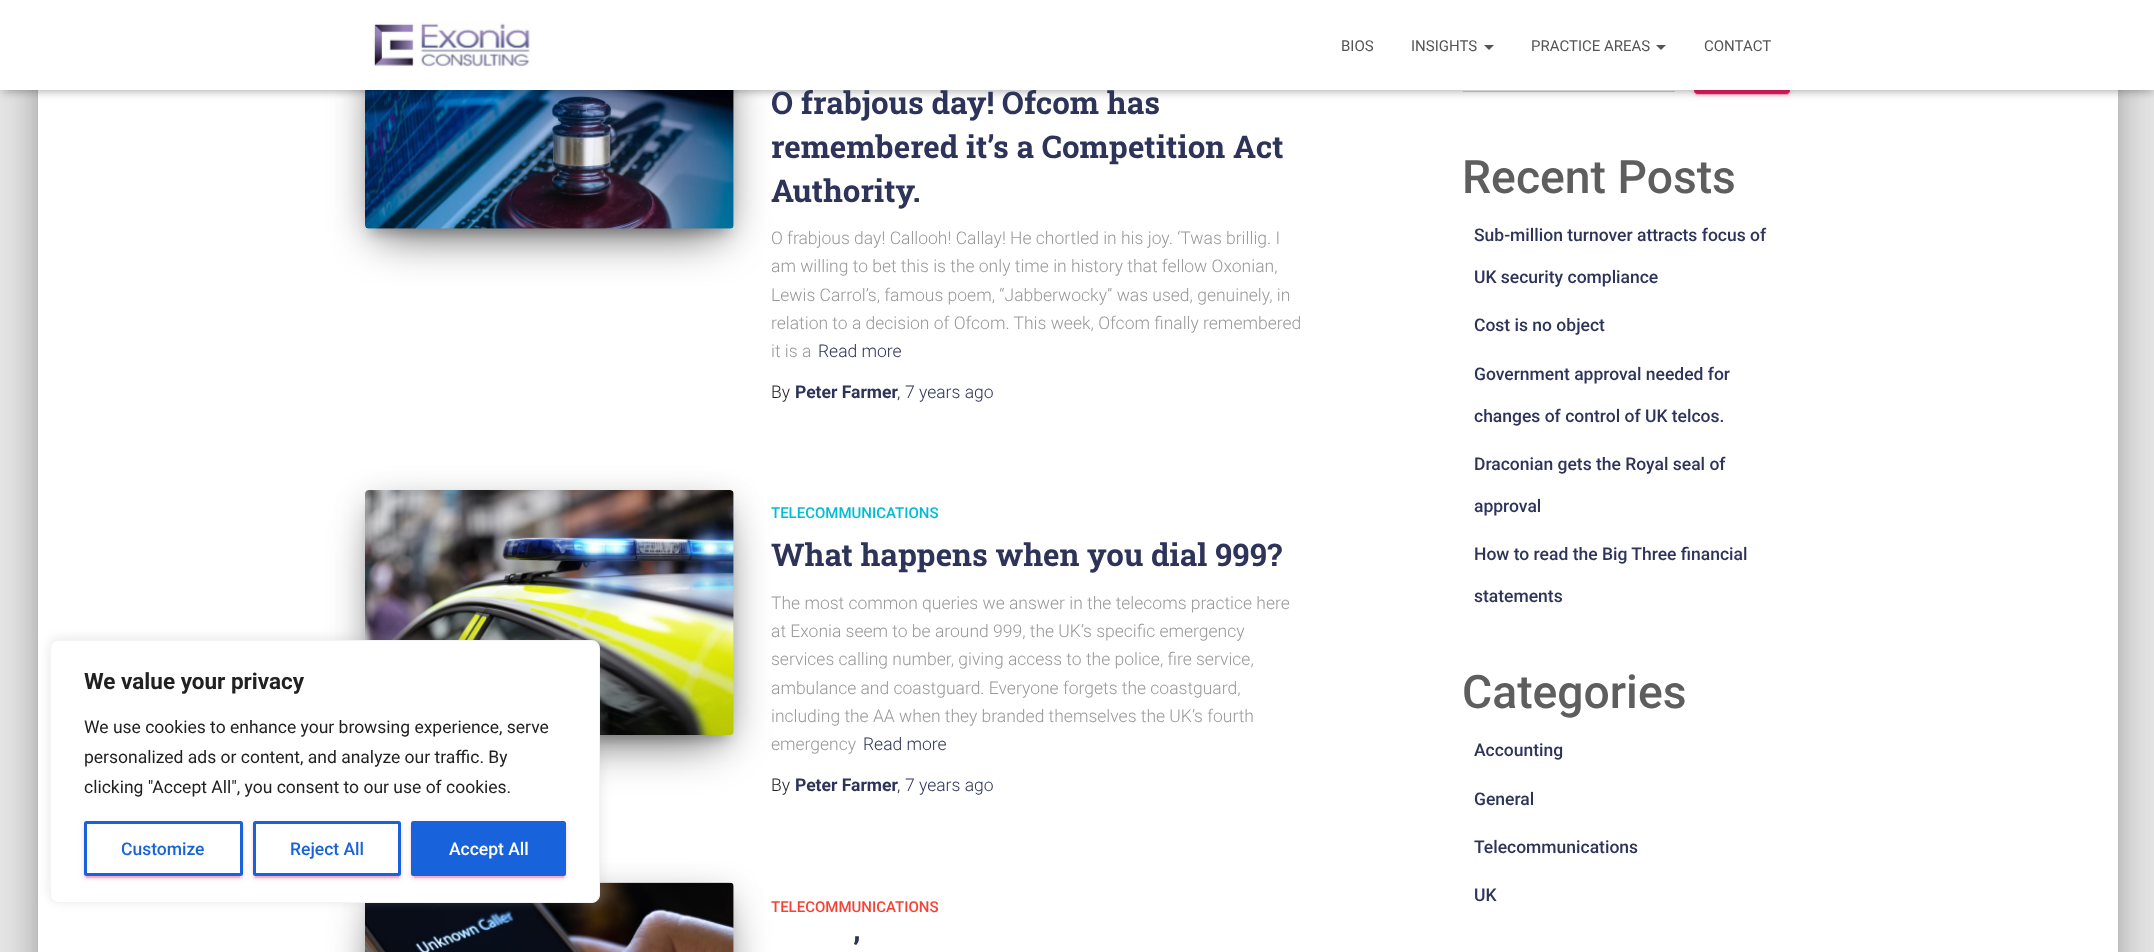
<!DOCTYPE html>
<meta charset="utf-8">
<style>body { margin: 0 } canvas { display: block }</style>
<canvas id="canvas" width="2154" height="952"></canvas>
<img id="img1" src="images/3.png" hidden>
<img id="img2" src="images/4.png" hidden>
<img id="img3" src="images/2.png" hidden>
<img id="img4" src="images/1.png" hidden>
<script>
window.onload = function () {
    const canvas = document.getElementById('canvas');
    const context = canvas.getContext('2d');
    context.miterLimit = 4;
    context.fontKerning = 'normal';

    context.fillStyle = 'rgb(229, 229, 229)';
    context.fillRect(0, 0, 2154, 952);
    context.fillStyle = 'rgba(0, 0, 0, 0.2)';
    context.filter = 'blur(6px)';
    context.beginPath();
    context.roundRect(44, 4, 2067, 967, 1);
    context.fill();
    context.filter = 'none';
    context.fillStyle = 'rgba(0, 0, 0, 0.12)';
    context.filter = 'blur(19px)';
    context.beginPath();
    context.roundRect(31, -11, 2093, 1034, 14);
    context.fill();
    context.filter = 'none';
    context.fillStyle = 'rgba(0, 0, 0, 0.14)';
    context.filter = 'blur(15px)';
    context.beginPath();
    context.roundRect(35, 5, 2085, 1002, 10);
    context.fill();
    context.filter = 'none';
    context.fillStyle = 'rgb(255, 255, 255)';
    context.fillRect(38, 90, 2080, 862);
    context.fillStyle = 'rgba(0, 0, 0, 0.2)';
    context.filter = 'blur(6px)';
    context.beginPath();
    context.rect(371, 506, 357, 233);
    context.fill();
    context.filter = 'none';
    context.fillStyle = 'rgba(0, 0, 0, 0.12)';
    context.filter = 'blur(15.5px)';
    context.beginPath();
    context.roundRect(365, 495, 369, 245, 4);
    context.fill();
    context.filter = 'none';
    context.fillStyle = 'rgba(0, 0, 0, 0.56)';
    context.filter = 'blur(24px)';
    context.beginPath();
    context.rect(380, 525, 339, 215);
    context.fill();
    context.filter = 'none';
    context.drawImage(document.getElementById('img1'), 365, 490, 369, 245);
    context.fillStyle = 'rgba(0, 0, 0, 0.2)';
    context.filter = 'blur(6px)';
    context.beginPath();
    context.rect(371, 899, 357, 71);
    context.fill();
    context.filter = 'none';
    context.fillStyle = 'rgba(0, 0, 0, 0.12)';
    context.filter = 'blur(15.5px)';
    context.beginPath();
    context.roundRect(365, 888, 369, 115, 4);
    context.fill();
    context.filter = 'none';
    context.fillStyle = 'rgba(0, 0, 0, 0.56)';
    context.filter = 'blur(24px)';
    context.beginPath();
    context.rect(380, 918, 339, 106);
    context.fill();
    context.filter = 'none';
    context.drawImage(document.getElementById('img2'), 365, 882, 369, 70);
    context.fillStyle = 'rgba(172, 171, 171, 0.3)';
    context.filter = 'blur(6px)';
    context.beginPath();
    context.roundRect(50, 639, 550, 262, 8);
    context.fill();
    context.filter = 'none';
    context.fillStyle = 'rgb(255, 255, 255)';
    context.beginPath();
    context.roundRect(50.5, 640.5, 549, 262, 7.5);
    context.fill();
    context.strokeStyle = 'rgb(244, 244, 244)';
    context.stroke();
    context.save();
    context.beginPath();
    context.moveTo(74, 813);
    context.lineTo(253, 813);
    context.lineTo(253, 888);
    context.lineTo(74, 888);
    context.closePath();
    context.moveTo(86.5, 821);
    context.lineTo(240.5, 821);
    context.bezierCurveTo(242, 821, 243, 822, 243, 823.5);
    context.lineTo(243, 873.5);
    context.bezierCurveTo(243, 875, 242, 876, 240.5, 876);
    context.lineTo(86.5, 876);
    context.bezierCurveTo(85, 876, 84, 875, 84, 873.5);
    context.lineTo(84, 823.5);
    context.bezierCurveTo(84, 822, 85, 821, 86.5, 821);
    context.closePath();
    context.clip('evenodd');
    context.fillStyle = 'rgba(233, 30, 99, 0.12)';
    context.filter = 'blur(3px)';
    context.beginPath();
    context.roundRect(84, 823, 159, 55, 2.5);
    context.fill();
    context.filter = 'none';
    context.restore();
    context.save();
    context.beginPath();
    context.rect(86, 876, 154, 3);
    context.clip();
    context.fillStyle = 'rgba(233, 30, 99, 0.2)';
    context.filter = 'blur(0.5px)';
    context.beginPath();
    context.rect(86, 828, 154, 50);
    context.fill();
    context.filter = 'none';
    context.restore();
    context.save();
    context.beginPath();
    context.moveTo(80, 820);
    context.lineTo(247, 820);
    context.lineTo(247, 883);
    context.lineTo(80, 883);
    context.closePath();
    context.moveTo(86.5, 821);
    context.lineTo(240.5, 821);
    context.bezierCurveTo(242, 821, 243, 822, 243, 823.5);
    context.lineTo(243, 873.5);
    context.bezierCurveTo(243, 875, 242, 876, 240.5, 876);
    context.lineTo(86.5, 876);
    context.bezierCurveTo(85, 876, 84, 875, 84, 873.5);
    context.lineTo(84, 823.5);
    context.bezierCurveTo(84, 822, 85, 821, 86.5, 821);
    context.closePath();
    context.clip('evenodd');
    context.fillStyle = 'rgba(233, 30, 99, 0.14)';
    context.filter = 'blur(1px)';
    context.beginPath();
    context.roundRect(84, 824, 159, 55, 2.5);
    context.fill();
    context.filter = 'none';
    context.restore();
    context.beginPath();
    context.roundRect(85.5, 822.5, 156, 52, 1);
    context.strokeStyle = 'rgb(24, 99, 220)';
    context.lineWidth = 3;
    context.stroke();
    context.save();
    context.beginPath();
    context.moveTo(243, 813);
    context.lineTo(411, 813);
    context.lineTo(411, 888);
    context.lineTo(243, 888);
    context.closePath();
    context.moveTo(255.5, 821);
    context.lineTo(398.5, 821);
    context.bezierCurveTo(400, 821, 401, 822, 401, 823.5);
    context.lineTo(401, 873.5);
    context.bezierCurveTo(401, 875, 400, 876, 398.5, 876);
    context.lineTo(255.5, 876);
    context.bezierCurveTo(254, 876, 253, 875, 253, 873.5);
    context.lineTo(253, 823.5);
    context.bezierCurveTo(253, 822, 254, 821, 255.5, 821);
    context.closePath();
    context.clip('evenodd');
    context.fillStyle = 'rgba(233, 30, 99, 0.12)';
    context.filter = 'blur(3px)';
    context.beginPath();
    context.roundRect(253, 823, 148, 55, 2.5);
    context.fill();
    context.filter = 'none';
    context.restore();
    context.save();
    context.beginPath();
    context.rect(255, 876, 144, 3);
    context.clip();
    context.fillStyle = 'rgba(233, 30, 99, 0.2)';
    context.filter = 'blur(0.5px)';
    context.beginPath();
    context.rect(255, 828, 144, 50);
    context.fill();
    context.filter = 'none';
    context.restore();
    context.save();
    context.beginPath();
    context.moveTo(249, 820);
    context.lineTo(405, 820);
    context.lineTo(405, 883);
    context.lineTo(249, 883);
    context.closePath();
    context.moveTo(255.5, 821);
    context.lineTo(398.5, 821);
    context.bezierCurveTo(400, 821, 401, 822, 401, 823.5);
    context.lineTo(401, 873.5);
    context.bezierCurveTo(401, 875, 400, 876, 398.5, 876);
    context.lineTo(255.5, 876);
    context.bezierCurveTo(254, 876, 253, 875, 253, 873.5);
    context.lineTo(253, 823.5);
    context.bezierCurveTo(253, 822, 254, 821, 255.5, 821);
    context.closePath();
    context.clip('evenodd');
    context.fillStyle = 'rgba(233, 30, 99, 0.14)';
    context.filter = 'blur(1px)';
    context.beginPath();
    context.roundRect(253, 824, 148, 55, 2.5);
    context.fill();
    context.filter = 'none';
    context.restore();
    context.beginPath();
    context.roundRect(254.5, 822.5, 145, 52, 1);
    context.stroke();
    context.fillStyle = 'rgba(233, 30, 99, 0.12)';
    context.filter = 'blur(3px)';
    context.beginPath();
    context.roundRect(411, 823, 155, 55, 2.5);
    context.fill();
    context.filter = 'none';
    context.fillStyle = 'rgba(233, 30, 99, 0.2)';
    context.filter = 'blur(0.5px)';
    context.beginPath();
    context.rect(414, 828, 150, 50);
    context.fill();
    context.filter = 'none';
    context.fillStyle = 'rgba(233, 30, 99, 0.14)';
    context.filter = 'blur(1px)';
    context.beginPath();
    context.roundRect(411, 824, 155, 55, 2.5);
    context.fill();
    context.filter = 'none';
    context.fillStyle = 'rgb(24, 99, 220)';
    context.beginPath();
    context.roundRect(412.5, 822.5, 152, 52, 1);
    context.fill();
    context.stroke();
    context.fillStyle = 'rgba(0, 0, 0, 0.2)';
    context.filter = 'blur(6px)';
    context.beginPath();
    context.rect(371, 54, 357, 179);
    context.fill();
    context.filter = 'none';
    context.fillStyle = 'rgba(0, 0, 0, 0.12)';
    context.filter = 'blur(15.5px)';
    context.beginPath();
    context.roundRect(365, 43, 369, 191, 4);
    context.fill();
    context.filter = 'none';
    context.fillStyle = 'rgba(0, 0, 0, 0.56)';
    context.filter = 'blur(24px)';
    context.beginPath();
    context.rect(380, 73, 339, 161);
    context.fill();
    context.filter = 'none';
    context.drawImage(document.getElementById('img3'), 365, 90, 369, 139);
    context.fillStyle = 'rgb(210, 210, 210)';
    context.fillRect(1463, 91, 212, 1);
    context.fillStyle = 'rgba(233, 30, 99, 0.12)';
    context.filter = 'blur(3px)';
    context.beginPath();
    context.roundRect(1694, 49, 96, 46, 4);
    context.fill();
    context.filter = 'none';
    context.fillStyle = 'rgba(233, 30, 99, 0.2)';
    context.filter = 'blur(0.5px)';
    context.beginPath();
    context.roundRect(1696, 54, 92, 41, 1);
    context.fill();
    context.filter = 'none';
    context.fillStyle = 'rgba(233, 30, 99, 0.14)';
    context.filter = 'blur(1px)';
    context.beginPath();
    context.roundRect(1694, 50, 96, 46, 4);
    context.fill();
    context.filter = 'none';
    context.fillStyle = 'rgb(233, 30, 99)';
    context.beginPath();
    context.roundRect(1694, 48, 96, 46, 4);
    context.fill();
    context.fillStyle = 'rgba(0, 0, 0, 0.1)';
    context.filter = 'blur(3px)';
    context.beginPath();
    context.rect(3, 8, 2150, 85);
    context.fill();
    context.filter = 'none';
    context.fillStyle = 'rgba(0, 0, 0, 0.12)';
    context.filter = 'blur(6px)';
    context.beginPath();
    context.rect(0, 1, 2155, 90);
    context.fill();
    context.filter = 'none';
    context.fillStyle = 'rgba(0, 0, 0, 0.42)';
    context.filter = 'blur(6px)';
    context.beginPath();
    context.rect(8, 9, 2140, 75);
    context.fill();
    context.filter = 'none';
    context.font = 'bold 22.5px Roboto';
    context.fillStyle = 'rgb(33, 33, 33)';
    context.fillText('We value your privacy', 84, 689);
    context.font = '17.5px Roboto';
    context.fillText('We use cookies to enhance your browsing experience, serve', 84, 733);
    context.fillText('personalized ads or content, and analyze our traffic. By', 84, 763);
    context.fillText('clicking "Accept All", you consent to our use of cookies.', 84, 793);
    context.font = '500 17.5px Roboto';
    context.fillStyle = 'rgb(24, 99, 220)';
    context.fillText('Customize', 121, 855);
    context.fillText('Reject All', 290, 855);
    context.fillStyle = 'rgb(255, 255, 255)';
    context.fillText('Accept All', 449, 855);
    context.font = 'bold 31.25px Roboto Slab';
    context.fillStyle = 'rgb(45, 51, 89)';
    context.fillText('O frabjous day! Ofcom has', 771, 114);
    context.fillStyle = 'rgb(255, 255, 255)';
    context.fillRect(0, 0, 2154, 90);
    context.font = '15px Roboto';
    context.fillStyle = 'rgb(85, 85, 85)';
    context.fillText('CONTACT', 1704, 51);
    context.beginPath();
    context.moveTo(1656, 45);
    context.lineTo(1666, 45);
    context.lineTo(1661, 50);
    context.closePath();
    context.fill();
    context.fillText('PRACTICE AREAS', 1531, 51);
    context.beginPath();
    context.moveTo(1484, 45);
    context.lineTo(1494, 45);
    context.lineTo(1489, 50);
    context.closePath();
    context.fill();
    context.fillText('INSIGHTS', 1411, 51);
    context.fillText('BIOS', 1341, 51);
    context.drawImage(document.getElementById('img4'), 373, 22, 159, 45);
    context.font = 'bold 31.25px Roboto Slab';
    context.fillStyle = 'rgb(45, 51, 89)';
    context.fillText('remembered it’s a Competition Act', 771, 158);
    context.fillText('Authority.', 771, 202);
    context.font = '300 17.5px Roboto';
    context.fillStyle = 'rgb(153, 153, 153)';
    context.fillText('O frabjous day! Callooh! Callay! He chortled in his joy. ‘Twas brillig. I', 771, 244);
    context.fillText('am willing to bet this is the only time in history that fellow Oxonian,', 771, 272);
    context.fillText('Lewis Carrol’s, famous poem, “Jabberwocky” was used, genuinely, in', 771, 301);
    context.fillText('relation to a decision of Ofcom. This week, Ofcom finally remembered', 771, 329);
    context.fillText('it is a', 771, 357);
    context.fillStyle = 'rgb(45, 51, 89)';
    context.fillText('Read more', 818, 357);
    context.fillStyle = 'rgb(33, 33, 33)';
    context.fillText('By', 771, 398);
    context.font = 'bold 17.5px Roboto';
    context.fillStyle = 'rgb(45, 51, 89)';
    context.fillText('Peter Farmer', 795, 398);
    context.font = '300 17.5px Roboto';
    context.fillStyle = 'rgb(33, 33, 33)';
    context.fillText(',', 897, 398);
    context.fillStyle = 'rgb(45, 51, 89)';
    context.fillText('7 years ago', 905, 398);
    context.font = '500 15px Roboto';
    context.fillStyle = 'rgb(0, 188, 212)';
    context.fillText('TELECOMMUNICATIONS', 771, 518);
    context.font = 'bold 31.25px Roboto Slab';
    context.fillStyle = 'rgb(45, 51, 89)';
    context.fillText('What happens when you dial 999?', 771, 566);
    context.font = '300 17.5px Roboto';
    context.fillStyle = 'rgb(153, 153, 153)';
    context.fillText('The most common queries we answer in the telecoms practice here', 771, 609);
    context.fillText('at Exonia seem to be around 999, the UK’s specific emergency', 771, 637);
    context.fillText('services calling number, giving access to the police, fire service,', 771, 665);
    context.fillText('ambulance and coastguard. Everyone forgets the coastguard,', 771, 694);
    context.fillText('including the AA when they branded themselves the UK’s fourth', 771, 722);
    context.fillText('emergency', 771, 750);
    context.fillStyle = 'rgb(45, 51, 89)';
    context.fillText('Read more', 863, 750);
    context.fillStyle = 'rgb(33, 33, 33)';
    context.fillText('By', 771, 791);
    context.font = 'bold 17.5px Roboto';
    context.fillStyle = 'rgb(45, 51, 89)';
    context.fillText('Peter Farmer', 795, 791);
    context.font = '300 17.5px Roboto';
    context.fillStyle = 'rgb(33, 33, 33)';
    context.fillText(',', 897, 791);
    context.fillStyle = 'rgb(45, 51, 89)';
    context.fillText('7 years ago', 905, 791);
    context.font = '500 15px Roboto';
    context.fillStyle = 'rgb(244, 67, 54)';
    context.fillText('TELECOMMUNICATIONS', 771, 912);
    context.font = 'bold 31.25px Roboto Slab';
    context.fillStyle = 'rgb(45, 51, 89)';
    context.fillText('’', 853, 960);
    context.font = '500 46.25px Roboto';
    context.fillStyle = 'rgb(94, 94, 94)';
    context.fillText('Recent Posts', 1462, 193);
    context.font = '500 17.5px Roboto';
    context.fillStyle = 'rgb(45, 51, 89)';
    context.fillText('Sub-million turnover attracts focus of', 1474, 241);
    context.fillText('UK security compliance', 1474, 283);
    context.fillText('Cost is no object', 1474, 331);
    context.fillText('Government approval needed for', 1474, 380);
    context.fillText('changes of control of UK telcos.', 1474, 422);
    context.fillText('Draconian gets the Royal seal of', 1474, 470);
    context.fillText('approval', 1474, 512);
    context.fillText('How to read the Big Three financial', 1474, 560);
    context.fillText('statements', 1474, 602);
    context.font = '500 46.25px Roboto';
    context.fillStyle = 'rgb(94, 94, 94)';
    context.fillText('Categories', 1462, 708);
    context.font = '500 17.5px Roboto';
    context.fillStyle = 'rgb(45, 51, 89)';
    context.fillText('Accounting', 1474, 756);
    context.fillText('General', 1474, 805);
    context.fillText('Telecommunications', 1474, 853);
    context.fillText('UK', 1474, 901);
};
</script>
